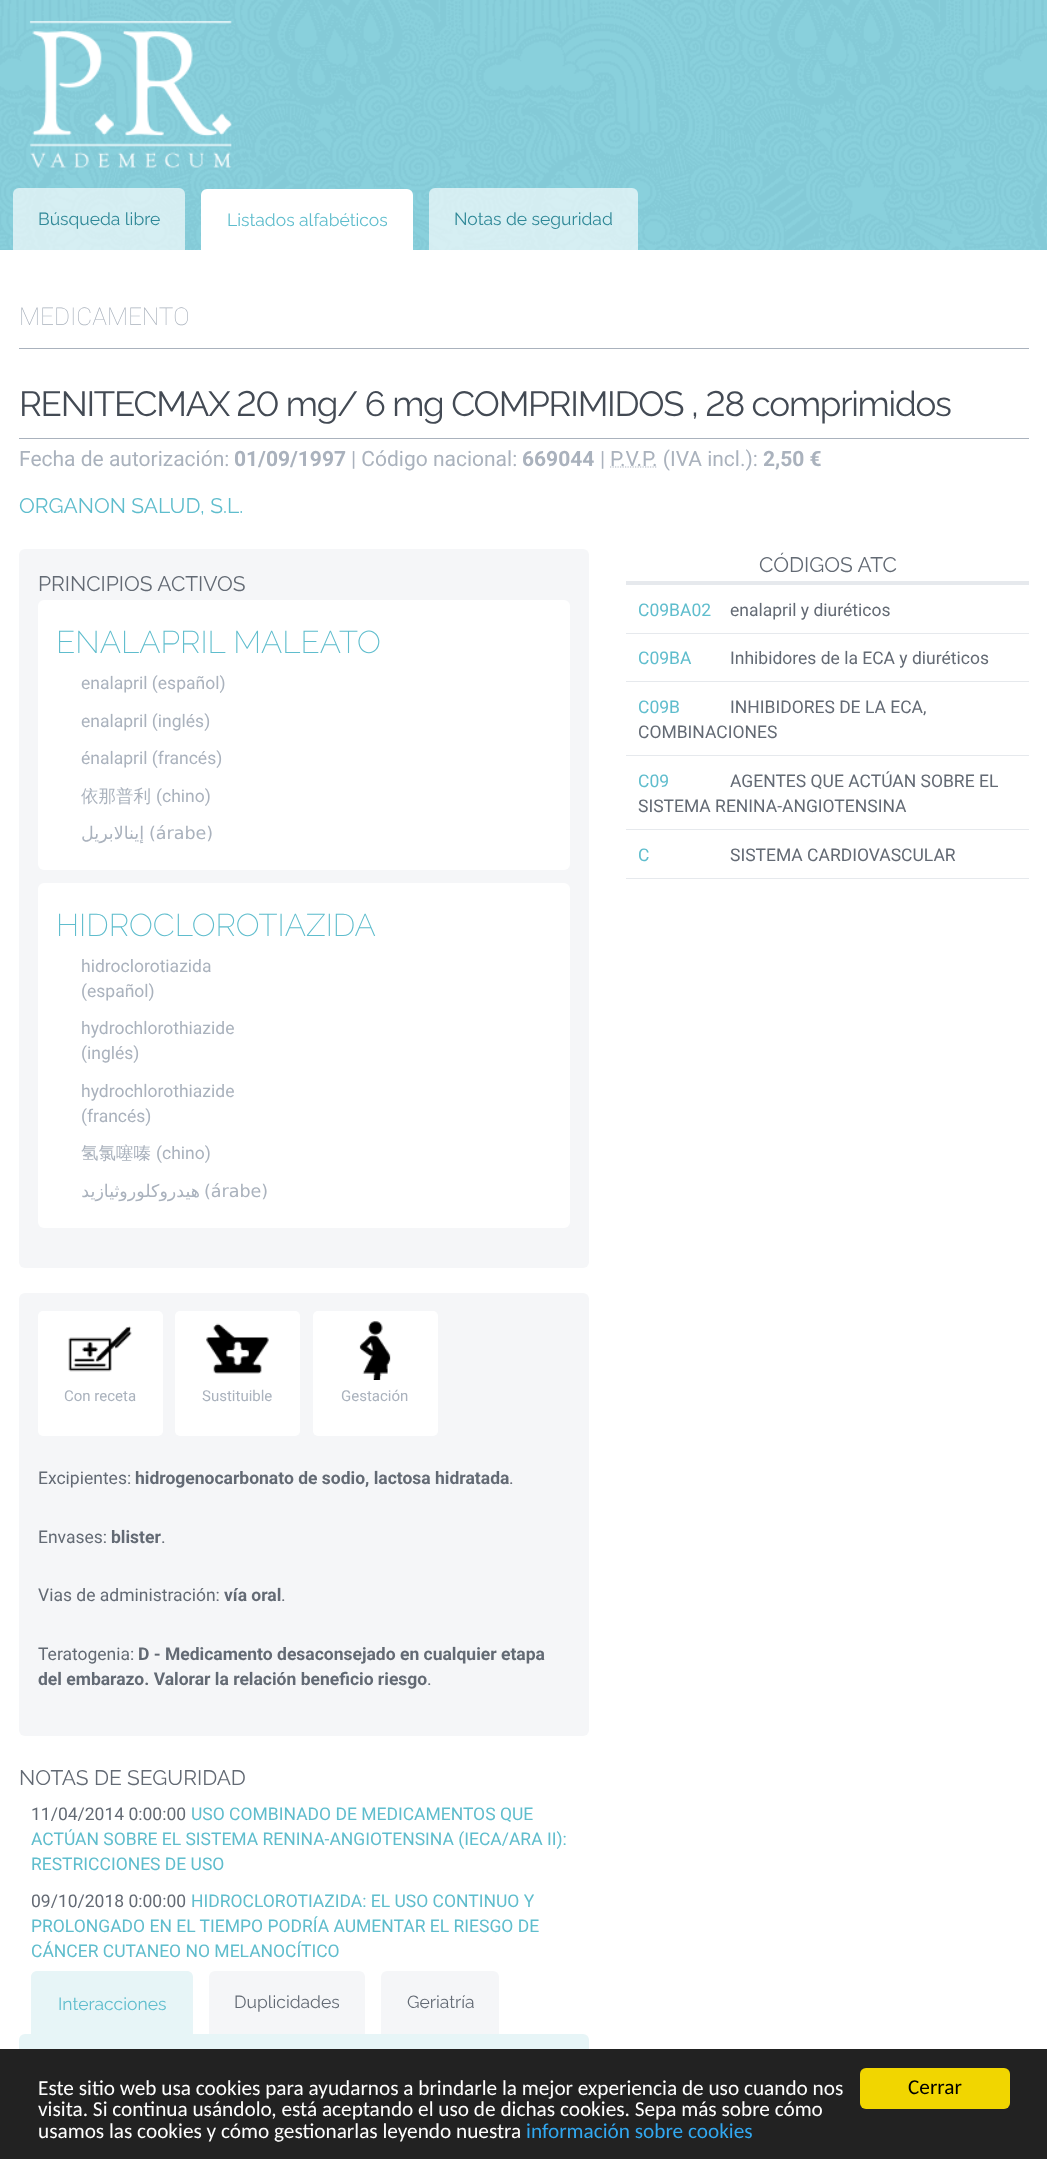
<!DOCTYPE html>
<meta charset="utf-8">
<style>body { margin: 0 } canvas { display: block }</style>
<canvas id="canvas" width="1047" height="2159"></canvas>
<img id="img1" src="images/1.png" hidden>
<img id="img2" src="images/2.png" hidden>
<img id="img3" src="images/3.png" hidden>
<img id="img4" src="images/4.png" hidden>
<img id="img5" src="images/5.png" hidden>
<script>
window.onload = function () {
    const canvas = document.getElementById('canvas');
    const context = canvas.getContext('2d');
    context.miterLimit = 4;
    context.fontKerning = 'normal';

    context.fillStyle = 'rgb(255, 255, 255)';
    context.fillRect(0, 0, 1047, 2159);
    context.drawImage(document.getElementById('img1'), 0, 0, 1047, 250);
    context.drawImage(document.getElementById('img2'), 29, 21, 203, 147);
    context.fillStyle = 'rgba(255, 255, 255, 0.65)';
    context.beginPath();
    context.roundRect(13, 188, 172, 62, [6, 6, 0, 0]);
    context.fill();
    context.fillStyle = 'rgb(255, 255, 255)';
    context.beginPath();
    context.roundRect(201, 189, 212, 62, [6, 6, 0, 0]);
    context.fill();
    context.fillStyle = 'rgba(255, 255, 255, 0.65)';
    context.beginPath();
    context.roundRect(429, 188, 209, 62, [6, 6, 0, 0]);
    context.fill();
    context.fillStyle = 'rgb(170, 178, 189)';
    context.fillRect(19, 348, 1010, 1);
    context.fillRect(19, 438, 1010, 1);
    context.beginPath();
    context.moveTo(610, 467);
    context.lineTo(657.5, 467);
    context.strokeStyle = 'rgb(170, 178, 189)';
    context.lineWidth = 1.2;
    context.setLineDash([1.25, 1.25]);
    context.stroke();
    context.fillStyle = 'rgb(245, 246, 248)';
    context.beginPath();
    context.roundRect(19, 549, 570, 719, 6);
    context.fill();
    context.fillStyle = 'rgb(255, 255, 255)';
    context.beginPath();
    context.roundRect(38, 600, 532, 270, 6);
    context.fill();
    context.beginPath();
    context.roundRect(38, 883, 532, 345, 6);
    context.fill();
    context.fillStyle = 'rgb(245, 246, 248)';
    context.beginPath();
    context.roundRect(19, 1293, 570, 443, 6);
    context.fill();
    context.fillStyle = 'rgb(255, 255, 255)';
    context.beginPath();
    context.roundRect(38, 1311, 125, 125, 5);
    context.fill();
    context.drawImage(document.getElementById('img3'), 68, 1326, 64, 46);
    context.beginPath();
    context.roundRect(175, 1311, 125, 125, 5);
    context.fill();
    context.drawImage(document.getElementById('img4'), 206, 1323, 63, 51);
    context.beginPath();
    context.roundRect(313, 1311, 125, 125, 5);
    context.fill();
    context.drawImage(document.getElementById('img5'), 359, 1321, 32, 59);
    context.fillStyle = 'rgb(231, 245, 247)';
    context.beginPath();
    context.roundRect(19, 2034, 570, 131, 6);
    context.fill();
    context.beginPath();
    context.roundRect(31, 1971, 162, 64, [6, 6, 0, 0]);
    context.fill();
    context.beginPath();
    context.moveTo(38, 1971);
    context.lineTo(186, 1971);
    context.bezierCurveTo(190, 1971, 192, 1974, 192, 1978);
    context.lineTo(192, 2035);
    context.lineTo(31, 2035);
    context.lineTo(31, 1978);
    context.bezierCurveTo(31, 1974, 34, 1971, 38, 1971);
    context.closePath();
    context.moveTo(38, 1972);
    context.lineTo(186, 1972);
    context.bezierCurveTo(189, 1972, 191, 1975, 191, 1978);
    context.lineTo(191, 2035);
    context.lineTo(32, 2035);
    context.lineTo(32, 1978);
    context.bezierCurveTo(32, 1975, 35, 1972, 38, 1972);
    context.closePath();
    context.fill('evenodd');
    context.fillStyle = 'rgb(245, 246, 248)';
    context.beginPath();
    context.roundRect(209, 1971, 156, 63, [6, 6, 0, 0]);
    context.fill();
    context.beginPath();
    context.roundRect(381, 1971, 118, 63, [6, 6, 0, 0]);
    context.fill();
    context.fillStyle = 'rgb(230, 233, 237)';
    context.fillRect(626, 581, 403, 4);
    context.fillRect(626, 633, 403, 1);
    context.fillRect(626, 681, 403, 1);
    context.fillRect(626, 755, 403, 1);
    context.fillRect(626, 829, 403, 1);
    context.fillRect(626, 878, 403, 1);
    context.fillStyle = 'rgb(34, 34, 34)';
    context.fillRect(0, 2049, 1047, 110);
    context.fillStyle = 'rgb(241, 214, 0)';
    context.beginPath();
    context.roundRect(860, 2068, 150, 41, 6);
    context.fill();
    context.font = '17.5px Raleway';
    context.fillStyle = 'rgb(47, 136, 151)';
    context.fillText('Búsqueda libre', 38, 225);
    context.fillStyle = 'rgb(95, 189, 205)';
    context.fillText('Listados alfabéticos', 227, 226);
    context.fillStyle = 'rgb(47, 136, 151)';
    context.fillText('Notas de seguridad', 454, 225);
    context.font = '100 24.5px Roboto';
    context.fillStyle = 'rgb(170, 178, 189)';
    context.fillText('MEDICAMENTO', 19, 325);
    context.letterSpacing = '-1.25px';
    context.font = '35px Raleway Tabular';
    context.fillStyle = 'rgb(67, 74, 84)';
    context.fillText('RENITECMAX 20 mg/ 6 mg COMPRIMIDOS , 28 comprimidos', 19, 416);
    context.letterSpacing = '0px';
    context.font = '21px Roboto';
    context.fillStyle = 'rgb(170, 178, 189)';
    context.fillText('Fecha de autorización:', 19, 466);
    context.font = 'bold 21px Roboto';
    context.fillText('01/09/1997', 234, 466);
    context.font = '21px Roboto';
    context.fillText('| Código nacional:', 351, 466);
    context.font = 'bold 21px Roboto';
    context.fillText('669044', 522, 466);
    context.font = '21px Roboto';
    context.fillText('|', 600, 466);
    context.fillText('P.V.P. (IVA incl.):', 610, 466);
    context.font = 'bold 21px Roboto';
    context.fillText('2,50 €', 763, 466);
    context.font = '21px Raleway';
    context.fillStyle = 'rgb(95, 189, 205)';
    context.fillText('ORGANON SALUD, S.L.', 19, 513);
    context.fillStyle = 'rgb(99, 106, 116)';
    context.fillText('PRINCIPIOS ACTIVOS', 38, 591);
    context.font = '200 31.5px Raleway';
    context.fillStyle = 'rgb(95, 189, 205)';
    context.fillText('ENALAPRIL MALEATO', 56, 653);
    context.font = '17.5px Roboto';
    context.fillStyle = 'rgb(170, 178, 189)';
    context.fillText('enalapril (español)', 81, 689);
    context.fillText('enalapril (inglés)', 81, 727);
    context.fillText('énalapril (francés)', 81, 764);
    context.font = '500 17.5px WenQuanYi Zen Hei';
    context.fillText('依那普利', 81, 802);
    context.font = '17.5px Roboto';
    context.fillText('(chino)', 156, 802);
    context.direction = 'rtl';
    context.font = '17.5px DejaVu Sans';
    context.fillText('إينالابريل', 144, 839);
    context.direction = 'ltr';
    context.fillText('(árabe)', 149, 839);
    context.font = '200 31.5px Raleway';
    context.fillStyle = 'rgb(95, 189, 205)';
    context.fillText('HIDROCLOROTIAZIDA', 56, 936);
    context.font = '17.5px Roboto';
    context.fillStyle = 'rgb(170, 178, 189)';
    context.fillText('hidroclorotiazida', 81, 972);
    context.fillText('(español)', 81, 997);
    context.fillText('hydrochlorothiazide', 81, 1034);
    context.fillText('(inglés)', 81, 1059);
    context.fillText('hydrochlorothiazide', 81, 1097);
    context.fillText('(francés)', 81, 1122);
    context.font = '500 17.5px WenQuanYi Zen Hei';
    context.fillText('氢氯噻嗪', 81, 1159);
    context.font = '17.5px Roboto';
    context.fillText('(chino)', 156, 1159);
    context.direction = 'rtl';
    context.font = '17.5px DejaVu Sans';
    context.fillText('هيدروكلوروثيازيد', 200, 1197);
    context.direction = 'ltr';
    context.fillText('(árabe)', 204, 1197);
    context.font = '15px Roboto';
    context.fillText('Con receta', 64, 1401);
    context.fillText('Sustituible', 202, 1401);
    context.fillText('Gestación', 341, 1401);
    context.font = '17.5px Roboto';
    context.fillStyle = 'rgb(99, 106, 116)';
    context.fillText('Excipientes:', 38, 1484);
    context.font = 'bold 17.5px Roboto';
    context.fillText('hidrogenocarbonato de sodio, lactosa hidratada', 135, 1484);
    context.font = '17.5px Roboto';
    context.fillText('.', 509, 1484);
    context.fillText('Envases:', 38, 1543);
    context.font = 'bold 17.5px Roboto';
    context.fillText('blister', 111, 1543);
    context.font = '17.5px Roboto';
    context.fillText('.', 161, 1543);
    context.fillText('Vias de administración:', 38, 1601);
    context.font = 'bold 17.5px Roboto';
    context.fillText('vía oral', 224, 1601);
    context.font = '17.5px Roboto';
    context.fillText('.', 281, 1601);
    context.fillText('Teratogenia:', 38, 1660);
    context.font = 'bold 17.5px Roboto';
    context.fillText('D - Medicamento desaconsejado en cualquier etapa', 138, 1660);
    context.fillText('del embarazo. Valorar la relación beneficio riesgo', 38, 1685);
    context.font = '17.5px Roboto';
    context.fillText('.', 427, 1685);
    context.font = '21px Raleway';
    context.fillText('NOTAS DE SEGURIDAD', 19, 1785);
    context.font = '17.5px Roboto';
    context.fillText('11/04/2014 0:00:00', 31, 1820);
    context.fillStyle = 'rgb(95, 189, 205)';
    context.fillText('USO COMBINADO DE MEDICAMENTOS QUE', 191, 1820);
    context.fillText('ACTÚAN SOBRE EL SISTEMA RENINA-ANGIOTENSINA (IECA/ARA II):', 31, 1845);
    context.fillText('RESTRICCIONES DE USO', 31, 1870);
    context.fillStyle = 'rgb(99, 106, 116)';
    context.fillText('09/10/2018 0:00:00', 31, 1907);
    context.fillStyle = 'rgb(95, 189, 205)';
    context.fillText('HIDROCLOROTIAZIDA: EL USO CONTINUO Y', 191, 1907);
    context.fillText('PROLONGADO EN EL TIEMPO PODRÍA AUMENTAR EL RIESGO DE', 31, 1932);
    context.fillText('CÁNCER CUTANEO NO MELANOCÍTICO', 31, 1957);
    context.font = '17.5px Raleway';
    context.fillText('Interacciones', 58, 2010);
    context.fillStyle = 'rgb(99, 106, 116)';
    context.fillText('Duplicidades', 234, 2008);
    context.fillText('Geriatría', 407, 2008);
    context.font = '21px Raleway';
    context.fillText('CÓDIGOS ATC', 759, 572);
    context.font = '17.5px Roboto';
    context.fillStyle = 'rgb(95, 189, 205)';
    context.fillText('C09BA02', 638, 616);
    context.fillStyle = 'rgb(99, 106, 116)';
    context.fillText('enalapril y diuréticos', 730, 616);
    context.fillStyle = 'rgb(95, 189, 205)';
    context.fillText('C09BA', 638, 664);
    context.fillStyle = 'rgb(99, 106, 116)';
    context.fillText('Inhibidores de la ECA y diuréticos', 730, 664);
    context.fillStyle = 'rgb(95, 189, 205)';
    context.fillText('C09B', 638, 713);
    context.fillStyle = 'rgb(99, 106, 116)';
    context.fillText('INHIBIDORES DE LA ECA,', 730, 713);
    context.fillText('COMBINACIONES', 638, 738);
    context.fillStyle = 'rgb(95, 189, 205)';
    context.fillText('C09', 638, 787);
    context.fillStyle = 'rgb(99, 106, 116)';
    context.fillText('AGENTES QUE ACTÚAN SOBRE EL', 730, 787);
    context.fillText('SISTEMA RENINA-ANGIOTENSINA', 638, 812);
    context.fillStyle = 'rgb(95, 189, 205)';
    context.fillText('C', 638, 861);
    context.fillStyle = 'rgb(99, 106, 116)';
    context.fillText('SISTEMA CARDIOVASCULAR', 730, 861);
    context.font = '21.25px Carlito';
    context.fillStyle = 'rgb(255, 255, 255)';
    context.fillText('Este sitio web usa cookies para ayudarnos a brindarle la mejor experiencia de uso cuando nos', 38, 2095);
    context.fillText('visita. Si continua usándolo, está aceptando el uso de dichas cookies. Sepa más sobre cómo', 38, 2116);
    context.fillText('usamos las cookies y cómo gestionarlas leyendo nuestra', 38, 2138);
    context.fillStyle = 'rgb(49, 168, 240)';
    context.fillText('información sobre cookies', 526, 2138);
    context.fillStyle = 'rgb(0, 0, 0)';
    context.fillText('Cerrar', 908, 2094);
};
</script>
